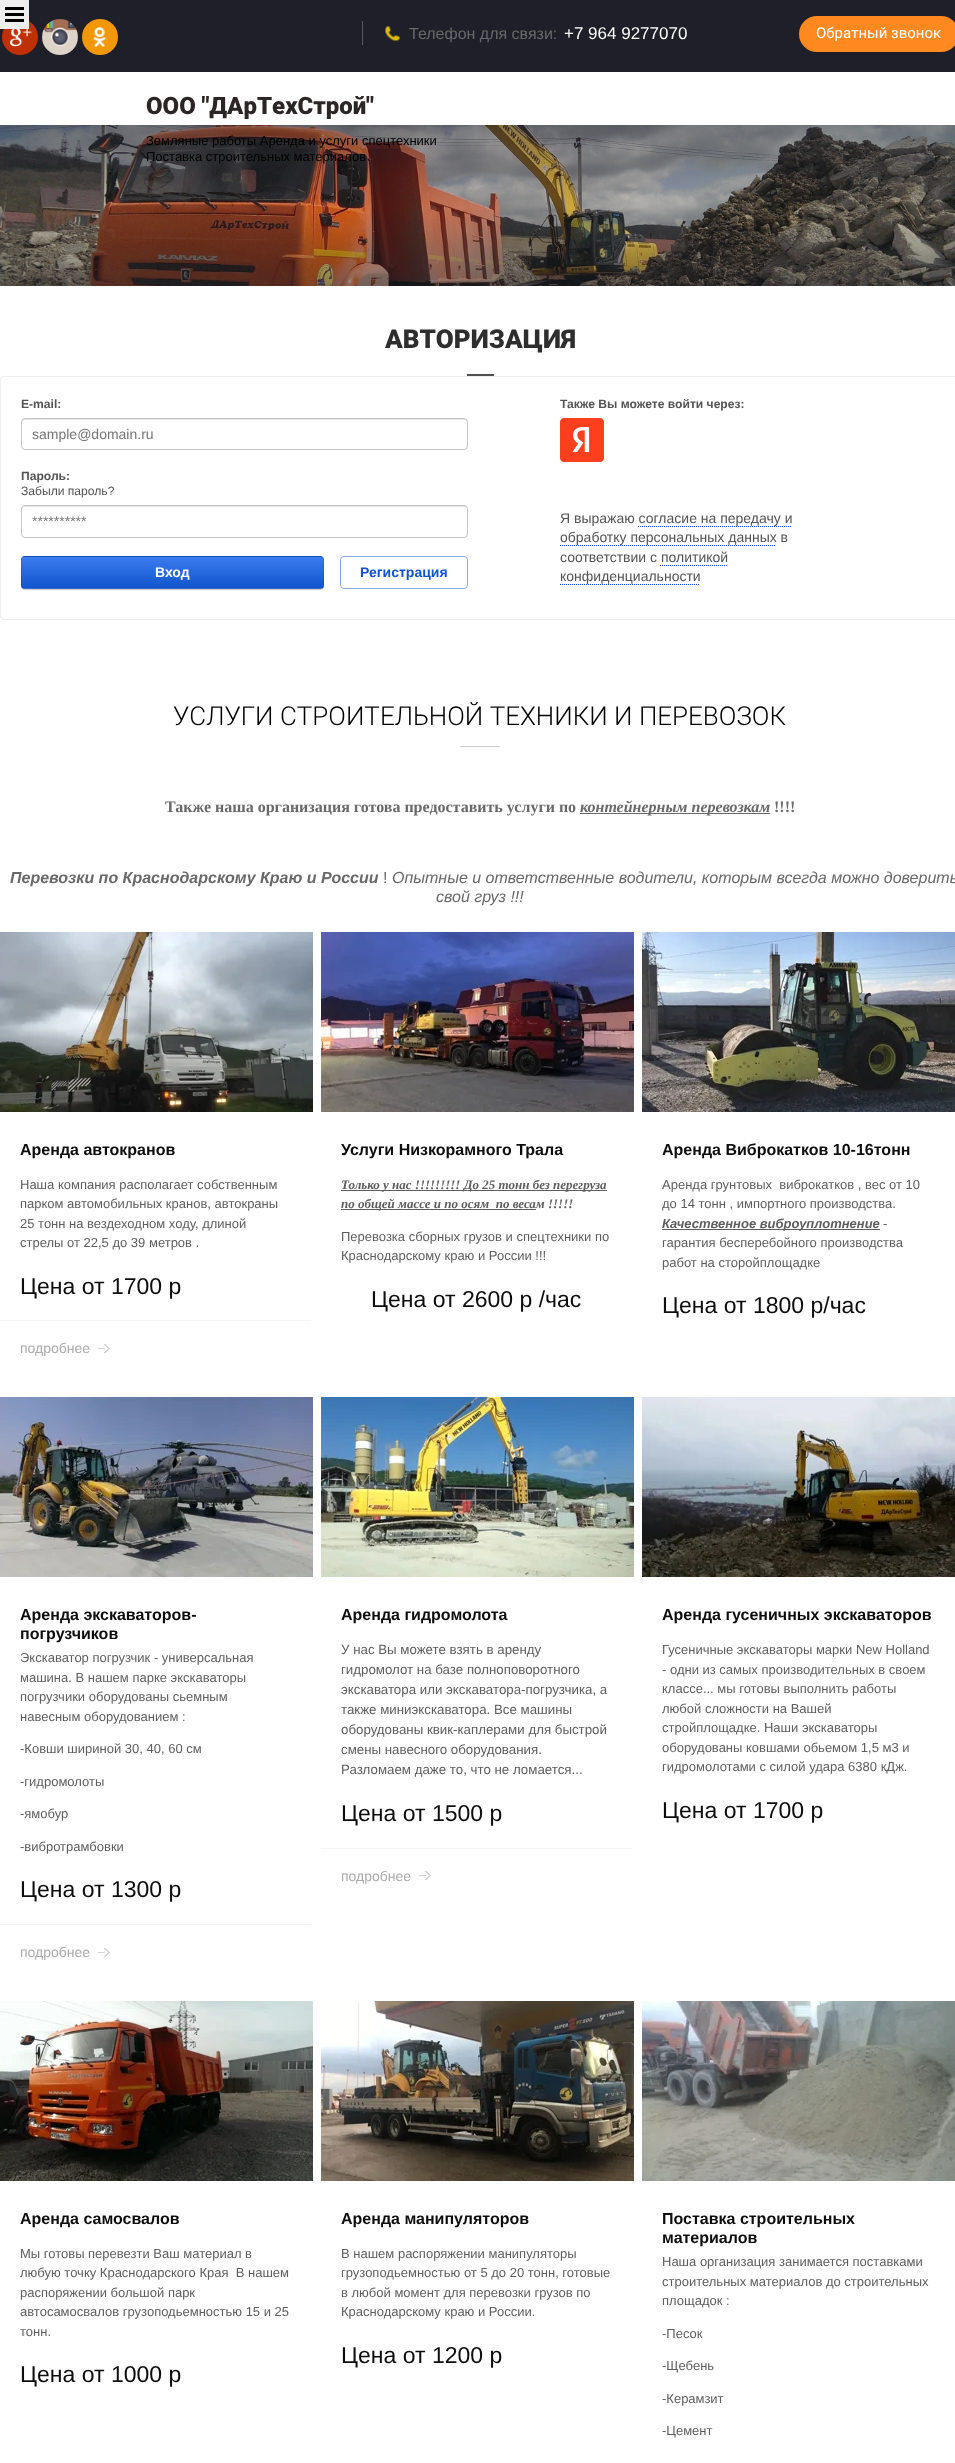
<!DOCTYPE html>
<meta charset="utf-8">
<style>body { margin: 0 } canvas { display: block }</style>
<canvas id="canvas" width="955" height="2463"></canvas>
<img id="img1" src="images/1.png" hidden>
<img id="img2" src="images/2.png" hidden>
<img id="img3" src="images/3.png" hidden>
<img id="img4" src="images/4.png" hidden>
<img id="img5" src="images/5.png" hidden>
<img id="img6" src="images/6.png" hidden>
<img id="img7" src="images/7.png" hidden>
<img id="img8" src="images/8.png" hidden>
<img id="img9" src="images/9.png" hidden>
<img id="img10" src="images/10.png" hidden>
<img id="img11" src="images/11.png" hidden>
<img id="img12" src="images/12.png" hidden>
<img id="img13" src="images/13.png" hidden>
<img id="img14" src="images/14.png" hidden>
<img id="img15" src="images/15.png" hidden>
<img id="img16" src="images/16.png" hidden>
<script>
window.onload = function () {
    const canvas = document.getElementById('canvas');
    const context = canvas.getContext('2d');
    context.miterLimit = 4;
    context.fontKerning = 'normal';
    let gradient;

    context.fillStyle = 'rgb(255, 255, 255)';
    context.fillRect(0, 0, 955, 2463);
    context.fillStyle = 'rgb(30, 31, 41)';
    context.fillRect(0, 0, 955, 72);
    context.drawImage(document.getElementById('img1'), 2, 21, 36, 34);
    context.fillStyle = 'rgb(238, 238, 238)';
    context.fillRect(0, 0, 29, 29);
    context.fillStyle = 'rgb(0, 0, 0)';
    context.fillRect(5, 7, 19, 3);
    context.fillRect(5, 13, 19, 3);
    context.fillRect(5, 19, 19, 3);
    context.drawImage(document.getElementById('img2'), 42, 19, 36, 36);
    context.drawImage(document.getElementById('img3'), 82, 19, 36, 36);
    context.fillStyle = 'rgb(92, 85, 85)';
    context.fillRect(362, 21, 1, 24);
    context.drawImage(document.getElementById('img4'), 385, 26, 15, 15);
    context.fillStyle = 'rgb(255, 137, 33)';
    context.beginPath();
    context.roundRect(799, 16, 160, 36, 18);
    context.fill();
    context.drawImage(document.getElementById('img5'), 0, 125, 955, 161);
    context.fillStyle = 'rgb(80, 80, 80)';
    context.fillRect(467, 374, 27, 2);
    context.beginPath();
    context.roundRect(0.5, 376.5, 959, 243, 3.5);
    context.strokeStyle = 'rgb(239, 239, 239)';
    context.stroke();
    context.fillStyle = 'rgb(230, 230, 230)';
    context.beginPath();
    context.moveTo(25, 420);
    context.lineTo(464, 420);
    context.bezierCurveTo(466, 420, 467, 421, 467, 423);
    context.bezierCurveTo(467, 421, 466, 419, 464, 419);
    context.lineTo(24, 419);
    context.lineTo(22, 421);
    context.lineTo(22, 423);
    context.bezierCurveTo(22, 421, 23, 420, 25, 420);
    context.closePath();
    context.fill();
    context.beginPath();
    context.roundRect(21.5, 418.5, 446, 31, 3.5);
    context.strokeStyle = 'rgb(197, 197, 197)';
    context.stroke();
    context.beginPath();
    context.moveTo(25, 507);
    context.lineTo(464, 507);
    context.bezierCurveTo(466, 507, 467, 508, 467, 510);
    context.bezierCurveTo(467, 508, 466, 506, 464, 506);
    context.lineTo(24, 506);
    context.lineTo(22, 508);
    context.lineTo(22, 510);
    context.bezierCurveTo(22, 508, 23, 507, 25, 507);
    context.closePath();
    context.fill();
    context.beginPath();
    context.roundRect(21.5, 505.5, 446, 32, 3.5);
    context.stroke();
    context.fillStyle = 'rgba(0, 0, 0, 0.2)';
    context.filter = 'blur(0.5px)';
    context.beginPath();
    context.roundRect(21, 557, 303, 33, 4);
    context.fill();
    context.filter = 'none';
    context.save();
    context.beginPath();
    context.roundRect(21, 556, 303, 33, 4);
    context.clip();
    gradient = context.createLinearGradient(173, 526, 173, 557);
    gradient.addColorStop(0, 'rgb(59, 124, 239)');
    gradient.addColorStop(1, 'rgb(17, 85, 204)');
    context.fillStyle = gradient;
    context.fillRect(21, 556, 303, 1);
    gradient = context.createLinearGradient(173, 557, 173, 588);
    gradient.addColorStop(0, 'rgb(59, 124, 239)');
    gradient.addColorStop(1, 'rgb(17, 85, 204)');
    context.fillStyle = gradient;
    context.fillRect(21, 557, 303, 31);
    gradient = context.createLinearGradient(173, 588, 173, 619);
    gradient.addColorStop(0, 'rgb(59, 124, 239)');
    gradient.addColorStop(1, 'rgb(17, 85, 204)');
    context.fillStyle = gradient;
    context.fillRect(21, 588, 303, 1);
    context.restore();
    context.beginPath();
    context.roundRect(21.5, 556.5, 302, 32, 3.5);
    context.strokeStyle = 'rgba(0, 0, 0, 0.1)';
    context.stroke();
    context.beginPath();
    context.roundRect(340.5, 556.5, 127, 32, 3.5);
    context.strokeStyle = 'rgb(136, 170, 230)';
    context.stroke();
    context.drawImage(document.getElementById('img6'), 560, 418, 44, 44);
    context.beginPath();
    context.moveTo(638, 526.5);
    context.lineTo(792, 526.5);
    context.strokeStyle = 'rgb(17, 85, 204)';
    context.setLineDash([1, 1]);
    context.stroke();
    context.beginPath();
    context.moveTo(560, 545.5);
    context.lineTo(776, 545.5);
    context.stroke();
    context.beginPath();
    context.moveTo(660, 565.5);
    context.lineTo(728, 565.5);
    context.stroke();
    context.beginPath();
    context.moveTo(560, 584.5);
    context.lineTo(700, 584.5);
    context.stroke();
    context.fillStyle = 'rgb(207, 207, 207)';
    context.fillRect(460, 746, 40, 1);
    context.fillStyle = 'rgb(105, 105, 105)';
    context.fillRect(580, 813, 190, 1);
    context.drawImage(document.getElementById('img7'), 0, 932, 313, 180);
    context.fillStyle = 'rgb(245, 245, 245)';
    context.fillRect(0, 1320, 311, 1);
    context.drawImage(document.getElementById('img8'), 98, 1344, 12, 9);
    context.drawImage(document.getElementById('img9'), 321, 932, 313, 180);
    context.fillStyle = 'rgb(94, 94, 94)';
    context.fillRect(341, 1190, 266, 1);
    context.fillRect(341, 1209, 195, 1);
    context.drawImage(document.getElementById('img10'), 642, 932, 313, 180);
    context.fillRect(662, 1229, 218, 1);
    context.drawImage(document.getElementById('img11'), 0, 1397, 313, 180);
    context.fillStyle = 'rgb(245, 245, 245)';
    context.fillRect(0, 1924, 311, 1);
    context.drawImage(document.getElementById('img8'), 98, 1948, 12, 9);
    context.drawImage(document.getElementById('img12'), 321, 1397, 313, 180);
    context.fillRect(321, 1848, 311, 1);
    context.drawImage(document.getElementById('img8'), 419, 1871, 12, 9);
    context.drawImage(document.getElementById('img13'), 642, 1397, 313, 180);
    context.drawImage(document.getElementById('img14'), 0, 2001, 313, 180);
    context.drawImage(document.getElementById('img15'), 321, 2001, 313, 180);
    context.drawImage(document.getElementById('img16'), 642, 2001, 313, 180);
    context.font = '16px Liberation Sans';
    context.fillStyle = 'rgb(105, 105, 105)';
    context.fillText('Телефон для связи:', 409, 39);
    context.font = '17px Liberation Sans';
    context.fillStyle = 'rgb(255, 255, 255)';
    context.fillText('+7 964 9277070', 564, 39);
    context.font = '15px Roboto';
    context.fillText('Обратный звонок', 816, 38);
    context.font = '900 24px Roboto';
    context.fillStyle = 'rgb(43, 37, 37)';
    context.fillText('ООО "ДАрТехСтрой"', 146, 114);
    context.font = '13px Liberation Sans';
    context.fillStyle = 'rgb(0, 0, 0)';
    context.fillText('Земляные работы Аренда и услуги спецтехники', 146, 145);
    context.fillText('Поставка строительных материалов', 146, 161);
    context.font = '900 26px Roboto';
    context.fillStyle = 'rgb(46, 46, 46)';
    context.fillText('АВТОРИЗАЦИЯ', 385, 348);
    context.font = 'bold 12.1px Liberation Sans';
    context.fillStyle = 'rgb(84, 84, 84)';
    context.fillText('E-mail:', 21, 408);
    context.font = '14px Liberation Sans';
    context.fillStyle = 'rgb(117, 117, 117)';
    context.fillText('sample@domain.ru', 32, 439);
    context.font = 'bold 12.1px Liberation Sans';
    context.fillStyle = 'rgb(84, 84, 84)';
    context.fillText('Пароль:', 21, 480);
    context.font = '12.1px Liberation Sans';
    context.fillText('Забыли пароль?', 21, 495);
    context.font = '14px Liberation Sans';
    context.fillStyle = 'rgb(117, 117, 117)';
    context.fillText('**********', 32, 526);
    context.font = 'bold 14px Liberation Sans';
    context.fillStyle = 'rgb(255, 255, 255)';
    context.fillText('Вход', 155, 577);
    context.fillStyle = 'rgb(17, 85, 204)';
    context.fillText('Регистрация', 360, 577);
    context.font = 'bold 12.1px Liberation Sans';
    context.fillStyle = 'rgb(84, 84, 84)';
    context.fillText('Также Вы можете войти через:', 560, 408);
    context.font = '14px Liberation Sans';
    context.fillText('Я выражаю согласие на передачу и', 560, 523);
    context.fillText('обработку персональных данных в', 560, 542);
    context.fillText('соответствии с политикой', 560, 562);
    context.fillText('конфиденциальности', 560, 581);
    context.font = '300 26px Roboto';
    context.fillStyle = 'rgb(0, 0, 0)';
    context.fillText('УСЛУГИ СТРОИТЕЛЬНОЙ ТЕХНИКИ И ПЕРЕВОЗОК', 173, 725);
    context.font = 'bold 16px Liberation Serif';
    context.fillStyle = 'rgb(105, 105, 105)';
    context.fillText('Также наша организация готова предоставить услуги по', 165, 812);
    context.font = 'italic bold 16px Liberation Serif';
    context.fillText('контейнерным перевозкам', 580, 812);
    context.font = 'bold 16px Liberation Serif';
    context.fillText('!!!!', 774, 812);
    context.font = 'italic bold 16px Liberation Sans';
    context.fillText('Перевозки по Краснодарскому Краю и России', 10, 883);
    context.font = '16px Liberation Sans';
    context.fillText('!', 383, 883);
    context.font = 'italic 16px Liberation Sans';
    context.fillText('Опытные и ответственные водители, которым всегда можно доверить', 392, 883);
    context.fillText('свой груз !!!', 436, 902);
    context.font = 'bold 16px Liberation Sans';
    context.fillStyle = 'rgb(13, 13, 13)';
    context.fillText('Аренда автокранов', 20, 1155);
    context.font = '13px Liberation Sans';
    context.fillStyle = 'rgb(94, 94, 94)';
    context.fillText('Наша компания располагает собственным', 20, 1189);
    context.fillText('парком автомобильных кранов, автокраны', 20, 1208);
    context.fillText('25 тонн на вездеходном ходу, длиной', 20, 1228);
    context.fillText('стрелы от 22,5 до 39 метров .', 20, 1247);
    context.font = '23px Liberation Sans';
    context.fillStyle = 'rgb(13, 13, 13)';
    context.fillText('Цена от 1700 р', 20, 1294);
    context.font = '14px Liberation Sans';
    context.fillStyle = 'rgb(171, 171, 171)';
    context.fillText('подробнее', 20, 1353);
    context.font = 'bold 16px Liberation Sans';
    context.fillStyle = 'rgb(13, 13, 13)';
    context.fillText('Услуги Низкорамного Трала', 341, 1155);
    context.font = 'italic bold 13px Liberation Serif';
    context.fillStyle = 'rgb(94, 94, 94)';
    context.fillText('Только у нас !!!!!!!!! До 25 тонн без перегруза', 341, 1189);
    context.fillText('по общей массе и по осям  по весам !!!!!', 341, 1208);
    context.font = '13px Liberation Sans';
    context.fillText('Перевозка сборных грузов и спецтехники по', 341, 1241);
    context.fillText('Краснодарскому краю и России !!!', 341, 1260);
    context.font = '23px Liberation Sans';
    context.fillStyle = 'rgb(13, 13, 13)';
    context.fillText('Цена от 2600 р /час', 371, 1307);
    context.font = 'bold 16px Liberation Sans';
    context.fillText('Аренда Виброкатков 10-16тонн', 662, 1155);
    context.font = '13px Liberation Sans';
    context.fillStyle = 'rgb(94, 94, 94)';
    context.fillText('Аренда грунтовых  виброкатков , вес от 10', 662, 1189);
    context.fillText('до 14 тонн , импортного производства.', 662, 1208);
    context.font = 'italic bold 13px Liberation Sans';
    context.fillText('Качественное виброуплотнение', 662, 1228);
    context.font = '13px Liberation Sans';
    context.fillText('-', 883, 1228);
    context.fillText('гарантия бесперебойного производства', 662, 1247);
    context.fillText('работ на сторойплощадке', 662, 1267);
    context.font = '23px Liberation Sans';
    context.fillStyle = 'rgb(13, 13, 13)';
    context.fillText('Цена от 1800 р/час', 662, 1313);
    context.font = 'bold 16px Liberation Sans';
    context.fillText('Аренда экскаваторов-', 20, 1620);
    context.fillText('погрузчиков', 20, 1639);
    context.font = '13px Liberation Sans';
    context.fillStyle = 'rgb(94, 94, 94)';
    context.fillText('Экскаватор погрузчик - универсальная', 20, 1662);
    context.fillText('машина. В нашем парке экскаваторы', 20, 1682);
    context.fillText('погрузчики оборудованы сьемным', 20, 1701);
    context.fillText('навесным оборудованием :', 20, 1721);
    context.fillText('-Ковши шириной 30, 40, 60 см', 20, 1753);
    context.fillText('-гидромолоты', 20, 1786);
    context.fillText('-ямобур', 20, 1818);
    context.fillText('-вибротрамбовки', 20, 1851);
    context.font = '23px Liberation Sans';
    context.fillStyle = 'rgb(13, 13, 13)';
    context.fillText('Цена от 1300 р', 20, 1897);
    context.font = '14px Liberation Sans';
    context.fillStyle = 'rgb(171, 171, 171)';
    context.fillText('подробнее', 20, 1957);
    context.font = 'bold 16px Liberation Sans';
    context.fillStyle = 'rgb(13, 13, 13)';
    context.fillText('Аренда гидромолота', 341, 1620);
    context.font = '13.3px Liberation Sans';
    context.fillStyle = 'rgb(94, 94, 94)';
    context.fillText('У нас Вы можете взять в аренду', 341, 1654);
    context.fillText('гидромолот на базе полноповоротного', 341, 1674);
    context.fillText('экскаватора или экскаватора-погрузчика, а', 341, 1694);
    context.fillText('также миниэкскаватора. Все машины', 341, 1714);
    context.fillText('оборудованы квик-каплерами для быстрой', 341, 1734);
    context.fillText('смены навесного оборудования.', 341, 1754);
    context.fillText('Разломаем даже то, что не ломается...', 341, 1774);
    context.font = '23px Liberation Sans';
    context.fillStyle = 'rgb(13, 13, 13)';
    context.fillText('Цена от 1500 р', 341, 1821);
    context.font = '14px Liberation Sans';
    context.fillStyle = 'rgb(171, 171, 171)';
    context.fillText('подробнее', 341, 1881);
    context.font = 'bold 16px Liberation Sans';
    context.fillStyle = 'rgb(13, 13, 13)';
    context.fillText('Аренда гусеничных экскаваторов', 662, 1620);
    context.font = '13px Liberation Sans';
    context.fillStyle = 'rgb(94, 94, 94)';
    context.fillText('Гусеничные экскаваторы марки New Holland', 662, 1654);
    context.fillText('- одни из самых производительных в своем', 662, 1674);
    context.fillText('классе... мы готовы выполнить работы', 662, 1693);
    context.fillText('любой сложности на Вашей', 662, 1713);
    context.fillText('стройплощадке. Наши экскаваторы', 662, 1732);
    context.fillText('оборудованы ковшами обьемом 1,5 м3 и', 662, 1752);
    context.fillText('гидромолотами с силой удара 6380 кДж.', 662, 1771);
    context.font = '23px Liberation Sans';
    context.fillStyle = 'rgb(13, 13, 13)';
    context.fillText('Цена от 1700 р', 662, 1818);
    context.font = 'bold 16px Liberation Sans';
    context.fillText('Аренда самосвалов', 20, 2224);
    context.font = '13px Liberation Sans';
    context.fillStyle = 'rgb(94, 94, 94)';
    context.fillText('Мы готовы перевезти Ваш материал в', 20, 2258);
    context.fillText('любую точку Краснодарского Края  В нашем', 20, 2277);
    context.fillText('распоряжении большой парк', 20, 2297);
    context.fillText('автосамосвалов грузоподьемностью 15 и 25', 20, 2316);
    context.fillText('тонн.', 20, 2336);
    context.font = '23px Liberation Sans';
    context.fillStyle = 'rgb(13, 13, 13)';
    context.fillText('Цена от 1000 р', 20, 2382);
    context.font = 'bold 16px Liberation Sans';
    context.fillText('Аренда манипуляторов', 341, 2224);
    context.font = '13px Liberation Sans';
    context.fillStyle = 'rgb(94, 94, 94)';
    context.fillText('В нашем распоряжении манипуляторы', 341, 2258);
    context.fillText('грузоподьемностью от 5 до 20 тонн, готовые', 341, 2277);
    context.fillText('в любой момент для перевозки грузов по', 341, 2297);
    context.fillText('Краснодарскому краю и России.', 341, 2316);
    context.font = '23px Liberation Sans';
    context.fillStyle = 'rgb(13, 13, 13)';
    context.fillText('Цена от 1200 р', 341, 2363);
    context.font = 'bold 16px Liberation Sans';
    context.fillText('Поставка строительных', 662, 2224);
    context.fillText('материалов', 662, 2243);
    context.font = '13px Liberation Sans';
    context.fillStyle = 'rgb(94, 94, 94)';
    context.fillText('Наша организация занимается поставками', 662, 2266);
    context.fillText('строительных материалов до строительных', 662, 2286);
    context.fillText('площадок :', 662, 2305);
    context.fillText('-Песок', 662, 2338);
    context.fillText('-Щебень', 662, 2370);
    context.fillText('-Керамзит', 662, 2403);
    context.fillText('-Цемент', 662, 2435);
};
</script>
